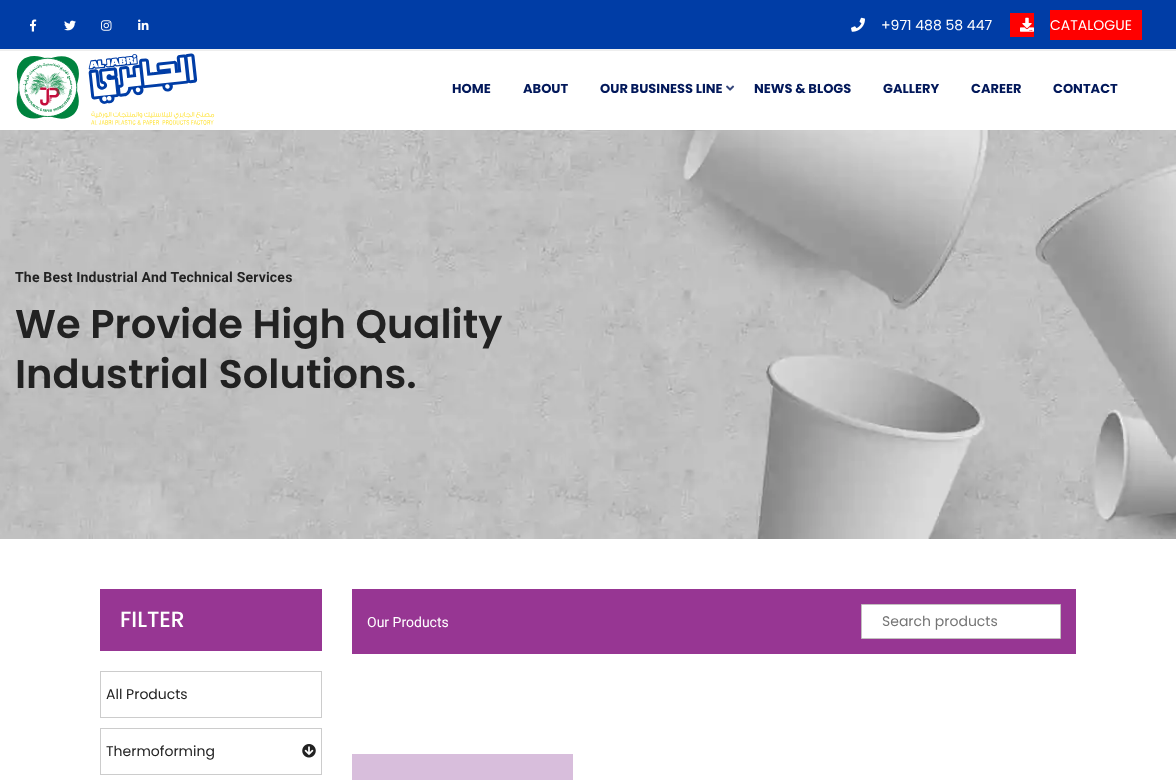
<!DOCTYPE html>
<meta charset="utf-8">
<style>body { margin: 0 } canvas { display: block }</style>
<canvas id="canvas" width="1176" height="780"></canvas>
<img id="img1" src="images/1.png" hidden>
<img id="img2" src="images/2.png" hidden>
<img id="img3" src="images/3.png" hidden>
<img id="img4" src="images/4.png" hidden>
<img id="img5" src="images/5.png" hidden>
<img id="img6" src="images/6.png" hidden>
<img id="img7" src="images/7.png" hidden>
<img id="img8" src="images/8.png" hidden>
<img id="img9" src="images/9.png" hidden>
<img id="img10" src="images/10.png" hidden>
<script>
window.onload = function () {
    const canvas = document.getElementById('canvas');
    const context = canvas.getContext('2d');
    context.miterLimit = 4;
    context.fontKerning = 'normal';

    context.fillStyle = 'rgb(0, 61, 166)';
    context.fillRect(0, 0, 1176, 780);
    context.fillStyle = 'rgb(241, 241, 241)';
    context.fillRect(0, 49, 1176, 1);
    context.drawImage(document.getElementById('img1'), 30, 19, 7, 13);
    context.drawImage(document.getElementById('img2'), 64, 20, 12, 11);
    context.drawImage(document.getElementById('img3'), 101, 20, 11, 11);
    context.drawImage(document.getElementById('img4'), 138, 19, 11, 11);
    context.drawImage(document.getElementById('img5'), 851, 17, 14, 15);
    context.fillStyle = 'rgb(255, 0, 0)';
    context.fillRect(1010, 13, 24, 24);
    context.fillRect(1050, 10, 92, 30);
    context.drawImage(document.getElementById('img6'), 1020, 17, 14, 15);
    context.fillStyle = 'rgb(255, 255, 255)';
    context.fillRect(0, 51, 1176, 79);
    context.fillStyle = 'rgb(238, 238, 238)';
    context.fillRect(0, 50, 1176, 1);
    context.drawImage(document.getElementById('img7'), 16, 53, 199, 72);
    context.drawImage(document.getElementById('img8'), 726, 85, 9, 6);
    context.drawImage(document.getElementById('img9'), 0, 130, 1176, 409);
    context.fillStyle = 'rgb(255, 255, 255)';
    context.fillRect(0, 539, 1176, 241);
    context.fillStyle = 'rgb(151, 54, 147)';
    context.fillRect(100, 589, 222, 62);
    context.strokeStyle = 'rgb(204, 204, 204)';
    context.strokeRect(100.5, 671.5, 221, 46);
    context.strokeRect(100.5, 728.5, 221, 46);
    context.drawImage(document.getElementById('img10'), 302, 744, 14, 14);
    context.fillRect(352, 589, 724, 65);
    context.fillStyle = 'rgb(255, 255, 255)';
    context.beginPath();
    context.rect(861.5, 604.5, 199, 34);
    context.fill();
    context.strokeStyle = 'rgb(195, 191, 191)';
    context.stroke();
    context.fillStyle = 'rgb(216, 190, 220)';
    context.fillRect(352, 754, 221, 26);
    context.font = '14px Poppins';
    context.fillStyle = 'rgb(255, 255, 255)';
    context.fillText('+971 488 58 447', 881, 30);
    context.fillText('CATALOGUE', 1050, 30);
    context.font = 'bold 13px Poppins';
    context.fillStyle = 'rgb(2, 24, 90)';
    context.fillText('HOME', 452, 93);
    context.fillText('ABOUT', 523, 93);
    context.fillText('OUR BUSINESS LINE', 600, 93);
    context.fillText('NEWS & BLOGS', 754, 93);
    context.fillText('GALLERY', 883, 93);
    context.fillText('CAREER', 971, 93);
    context.fillText('CONTACT', 1053, 93);
    context.letterSpacing = '0.2px';
    context.font = 'bold 14px Roboto';
    context.fillStyle = 'rgb(34, 34, 34)';
    context.fillText('The Best Industrial And Technical Services', 15, 282);
    context.letterSpacing = '0px';
    context.font = '600 40px Poppins';
    context.fillText('We Provide High Quality', 15, 338);
    context.fillText('Industrial Solutions.', 15, 388);
    context.font = '500 22px Poppins';
    context.fillStyle = 'rgb(255, 255, 255)';
    context.fillText('FILTER', 120, 627);
    context.font = '14px Poppins';
    context.fillStyle = 'rgb(34, 34, 34)';
    context.fillText('All Products', 106, 699);
    context.fillText('Thermoforming', 106, 756);
    context.font = '14px Roboto';
    context.fillStyle = 'rgb(255, 255, 255)';
    context.fillText('Our Products', 367, 627);
    context.font = '14px Poppins';
    context.fillStyle = 'rgb(117, 117, 117)';
    context.fillText('Search products', 882, 626);
};
</script>
